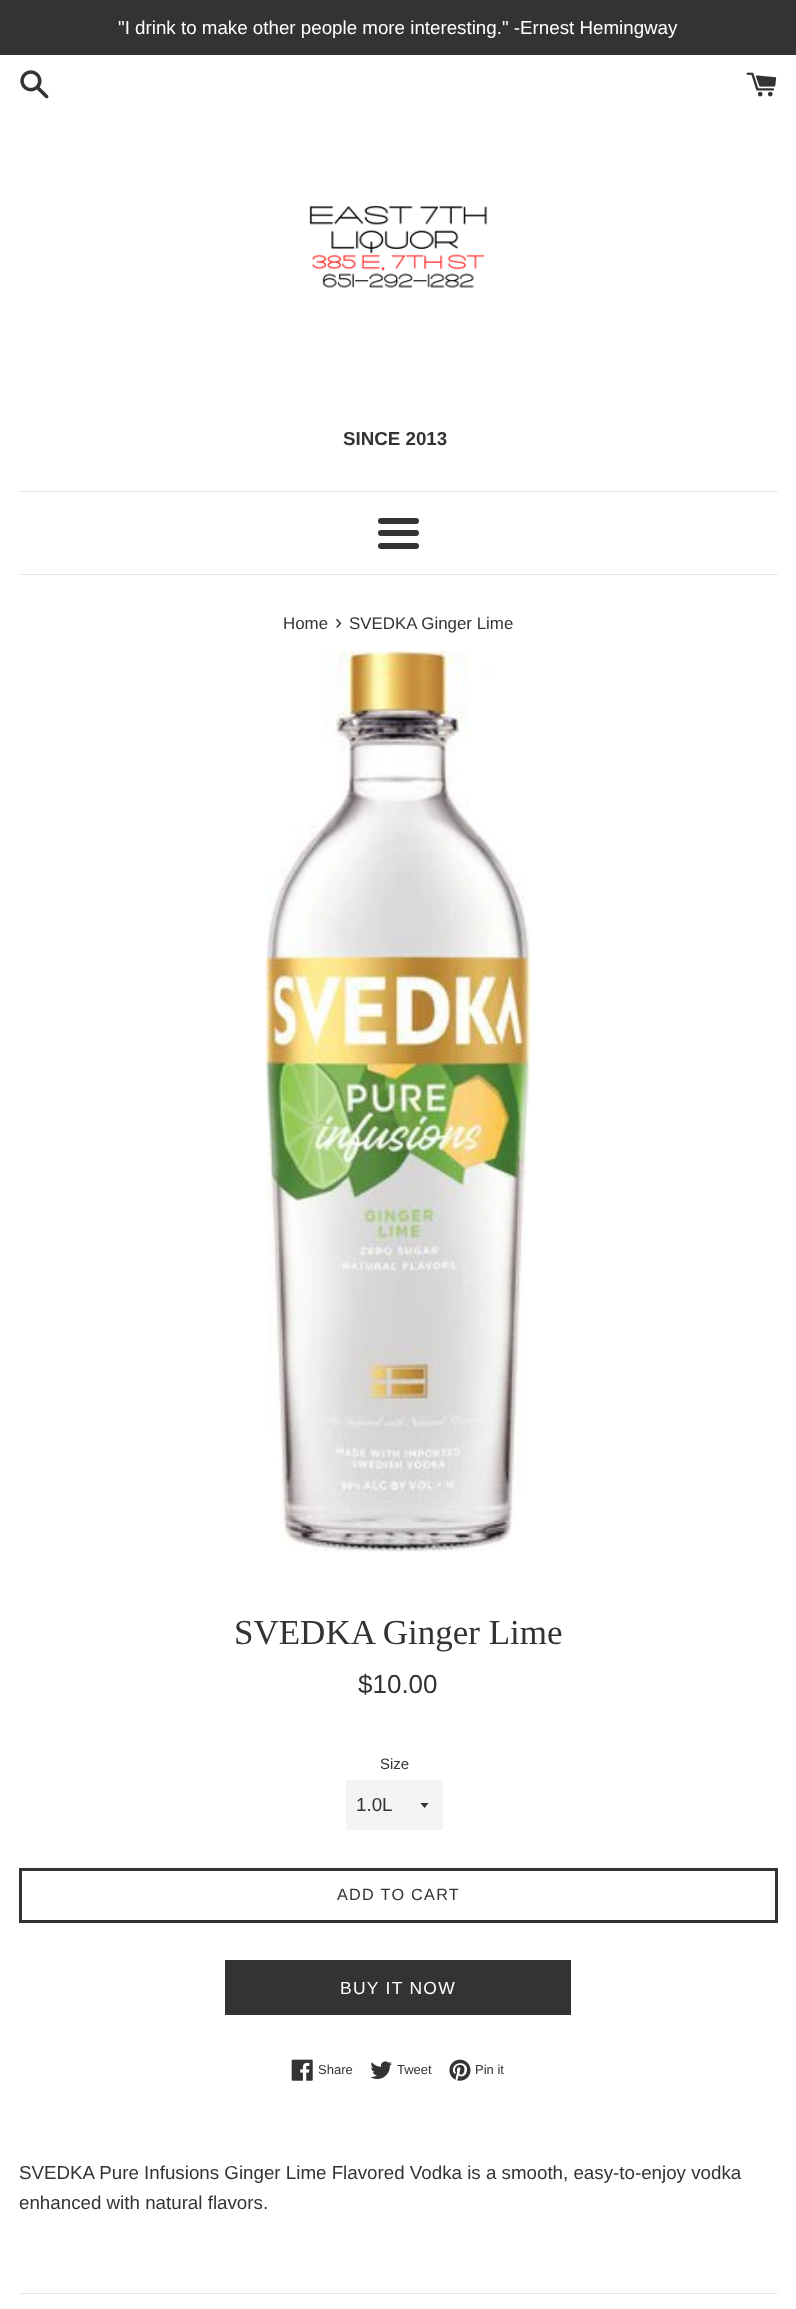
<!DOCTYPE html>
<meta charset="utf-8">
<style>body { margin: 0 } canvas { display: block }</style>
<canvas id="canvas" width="796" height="2309"></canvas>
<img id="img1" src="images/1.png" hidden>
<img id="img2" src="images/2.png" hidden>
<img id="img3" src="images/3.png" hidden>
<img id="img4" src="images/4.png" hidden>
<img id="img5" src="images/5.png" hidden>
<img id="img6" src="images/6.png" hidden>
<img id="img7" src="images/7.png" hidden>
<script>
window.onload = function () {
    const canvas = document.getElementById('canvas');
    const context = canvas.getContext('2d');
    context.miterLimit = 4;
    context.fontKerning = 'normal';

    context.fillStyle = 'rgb(255, 255, 255)';
    context.fillRect(0, 0, 796, 2309);
    context.fillStyle = 'rgb(51, 51, 51)';
    context.fillRect(0, 0, 796, 55);
    context.drawImage(document.getElementById('img1'), 20, 70, 29, 29);
    context.drawImage(document.getElementById('img2'), 746, 72, 31, 25);
    context.drawImage(document.getElementById('img3'), 309, 205, 179, 83);
    context.fillStyle = 'rgb(232, 232, 232)';
    context.fillRect(19, 491, 759, 1);
    context.fillStyle = 'rgb(51, 51, 51)';
    context.beginPath();
    context.roundRect(378, 518, 41, 6, 3);
    context.fill();
    context.beginPath();
    context.roundRect(378, 530, 41, 6, 3);
    context.fill();
    context.beginPath();
    context.roundRect(378, 543, 41, 6, 3);
    context.fill();
    context.fillStyle = 'rgb(232, 232, 232)';
    context.fillRect(19, 574, 759, 1);
    context.drawImage(document.getElementById('img4'), 266, 651, 264, 901);
    context.fillStyle = 'rgb(244, 244, 244)';
    context.fillRect(346, 1780, 97, 50);
    context.save();
    context.beginPath();
    context.rect(420, 1803, 10, 6);
    context.clip();
    context.fillStyle = 'rgb(51, 51, 51)';
    context.beginPath();
    context.moveTo(420, 1802.5);
    context.lineTo(424.5, 1808);
    context.lineTo(429, 1802.5);
    context.closePath();
    context.fill();
    context.restore();
    context.strokeStyle = 'rgb(51, 51, 51)';
    context.lineWidth = 3;
    context.strokeRect(20.5, 1869.5, 756, 52);
    context.fillStyle = 'rgb(51, 51, 51)';
    context.fillRect(225, 1960, 346, 55);
    context.drawImage(document.getElementById('img5'), 291, 2059, 22, 22);
    context.drawImage(document.getElementById('img6'), 370, 2061, 22, 18);
    context.drawImage(document.getElementById('img7'), 449, 2059, 22, 22);
    context.fillStyle = 'rgb(232, 232, 232)';
    context.fillRect(19, 2293, 759, 1);
    context.font = '18.75px Liberation Sans';
    context.fillStyle = 'rgb(255, 255, 255)';
    context.fillText('"I drink to make other people more interesting." -Ernest Hemingway', 118, 34);
    context.font = 'bold 18.75px Liberation Sans';
    context.fillStyle = 'rgb(51, 51, 51)';
    context.fillText('SINCE 2013', 343, 445);
    context.font = '16.9px Liberation Sans';
    context.fillText('Home', 283, 629);
    context.font = '21px Liberation Sans';
    context.fillText('›', 335, 629);
    context.font = '16.9px Liberation Sans';
    context.fillText('SVEDKA Ginger Lime', 349, 629);
    context.font = '35px Liberation Serif';
    context.fillText('SVEDKA Ginger Lime', 234, 1644);
    context.font = '26px Liberation Sans';
    context.fillText('$10.00', 358, 1693);
    context.font = '15px Liberation Sans';
    context.fillText('Size', 380, 1769);
    context.font = '18.75px Liberation Sans';
    context.fillText('1.0L', 356, 1811);
    context.letterSpacing = '1.25px';
    context.font = '16.25px Liberation Sans';
    context.fillText('ADD TO CART', 337, 1900);
    context.font = '17.5px Liberation Sans';
    context.fillStyle = 'rgb(255, 255, 255)';
    context.fillText('BUY IT NOW', 340, 1994);
    context.letterSpacing = '0px';
    context.font = '13px Liberation Sans';
    context.fillStyle = 'rgb(51, 51, 51)';
    context.fillText('Share', 318, 2074);
    context.fillText('Tweet', 397, 2074);
    context.fillText('Pin it', 475, 2074);
    context.font = '18.75px Liberation Sans';
    context.fillText('SVEDKA Pure Infusions Ginger Lime Flavored Vodka is a smooth, easy-to-enjoy vodka', 19, 2179);
    context.fillText('enhanced with natural flavors.', 19, 2209);
};
</script>
